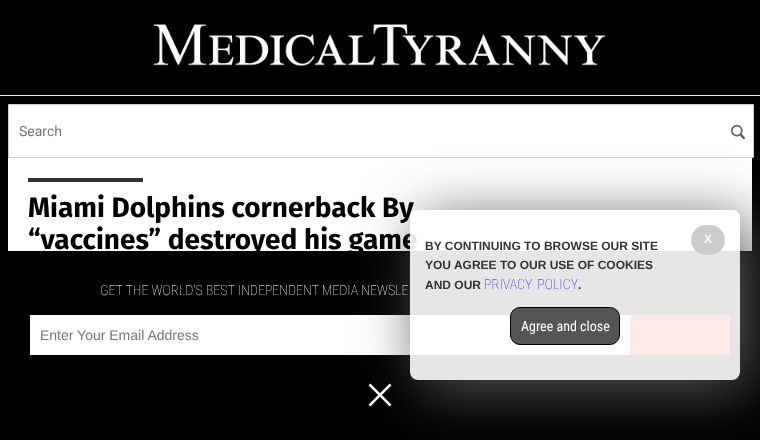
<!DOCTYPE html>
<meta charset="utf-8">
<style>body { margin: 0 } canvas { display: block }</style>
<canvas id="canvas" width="760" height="440"></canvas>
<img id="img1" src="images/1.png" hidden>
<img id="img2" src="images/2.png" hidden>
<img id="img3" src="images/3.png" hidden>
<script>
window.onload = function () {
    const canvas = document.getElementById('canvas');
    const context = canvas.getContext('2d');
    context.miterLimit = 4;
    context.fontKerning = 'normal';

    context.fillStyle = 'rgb(0, 0, 0)';
    context.fillRect(0, 0, 760, 440);
    context.drawImage(document.getElementById('img1'), 153, 24, 453, 43);
    context.fillStyle = 'rgb(236, 236, 236)';
    context.fillRect(0, 95, 760, 1);
    context.fillStyle = 'rgb(255, 255, 255)';
    context.beginPath();
    context.rect(8.5, 104.5, 745, 53);
    context.fill();
    context.strokeStyle = 'rgb(204, 204, 204)';
    context.stroke();
    context.drawImage(document.getElementById('img2'), 731, 124, 14, 16);
    context.fillRect(8, 158, 744, 93);
    context.fillStyle = 'rgb(51, 51, 51)';
    context.fillRect(28, 178, 115, 4);
    context.fillStyle = 'rgb(255, 255, 255)';
    context.fillRect(30, 315, 600, 40);
    context.fillStyle = 'rgb(255, 51, 0)';
    context.fillRect(630, 315, 100, 40);
    context.drawImage(document.getElementById('img3'), 368, 383, 24, 24);
    context.save();
    context.beginPath();
    context.moveTo(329, 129);
    context.lineTo(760, 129);
    context.lineTo(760, 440);
    context.lineTo(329, 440);
    context.closePath();
    context.moveTo(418, 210);
    context.lineTo(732, 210);
    context.bezierCurveTo(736.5, 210, 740, 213.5, 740, 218);
    context.lineTo(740, 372);
    context.bezierCurveTo(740, 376.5, 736.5, 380, 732, 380);
    context.lineTo(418, 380);
    context.bezierCurveTo(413.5, 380, 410, 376.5, 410, 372);
    context.lineTo(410, 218);
    context.bezierCurveTo(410, 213.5, 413.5, 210, 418, 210);
    context.closePath();
    context.clip('evenodd');
    context.fillStyle = 'rgb(85, 85, 85)';
    context.filter = 'blur(30px)';
    context.beginPath();
    context.roundRect(420, 220, 330, 170, 8);
    context.fill();
    context.filter = 'none';
    context.restore();
    context.font = '14px Roboto';
    context.fillStyle = 'rgb(117, 117, 117)';
    context.fillText('Search', 19, 136);
    context.font = 'bold 28px Fira Sans';
    context.fillStyle = 'rgb(0, 0, 0)';
    context.fillText('Miami Dolphins cornerback By', 28, 217);
    context.fillText('“vaccines” destroyed his game', 28, 249);
    context.font = '100 14px Roboto Condensed';
    context.fillStyle = 'rgb(255, 255, 255)';
    context.fillText('GET THE WORLD\'S BEST INDEPENDENT MEDIA NEWSLE', 100, 295);
    context.font = '14px Liberation Sans';
    context.fillStyle = 'rgb(117, 117, 117)';
    context.fillText('Enter Your Email Address', 40, 340);
    context.fillStyle = 'rgba(255, 255, 255, 0.9)';
    context.beginPath();
    context.roundRect(410, 210, 330, 170, 8);
    context.fill();
    context.fillStyle = 'rgb(204, 204, 204)';
    context.beginPath();
    context.roundRect(691, 225, 34, 30, 15);
    context.fill();
    context.font = 'bold 12px Liberation Sans';
    context.fillStyle = 'rgb(255, 255, 255)';
    context.fillText('X', 704, 243);
    context.fillStyle = 'rgb(51, 51, 51)';
    context.fillText('BY CONTINUING TO BROWSE OUR SITE', 425, 250);
    context.fillText('YOU AGREE TO OUR USE OF COOKIES', 425, 269);
    context.fillText('AND OUR', 425, 289);
    context.wordSpacing = '2px';
    context.font = '100 14px Roboto Condensed';
    context.fillStyle = 'rgb(0, 0, 255)';
    context.fillText('PRIVACY POLICY', 484, 289);
    context.wordSpacing = '0px';
    context.font = 'bold 12px Liberation Sans';
    context.fillStyle = 'rgb(51, 51, 51)';
    context.fillText('.', 578, 289);
    context.fillStyle = 'rgb(85, 85, 85)';
    context.beginPath();
    context.roundRect(510.5, 307.5, 109, 37, 9.5);
    context.fill();
    context.strokeStyle = 'rgb(0, 0, 0)';
    context.stroke();
    context.font = '14px Roboto Condensed';
    context.fillStyle = 'rgb(255, 255, 255)';
    context.fillText('Agree and close', 521, 331);
};
</script>
